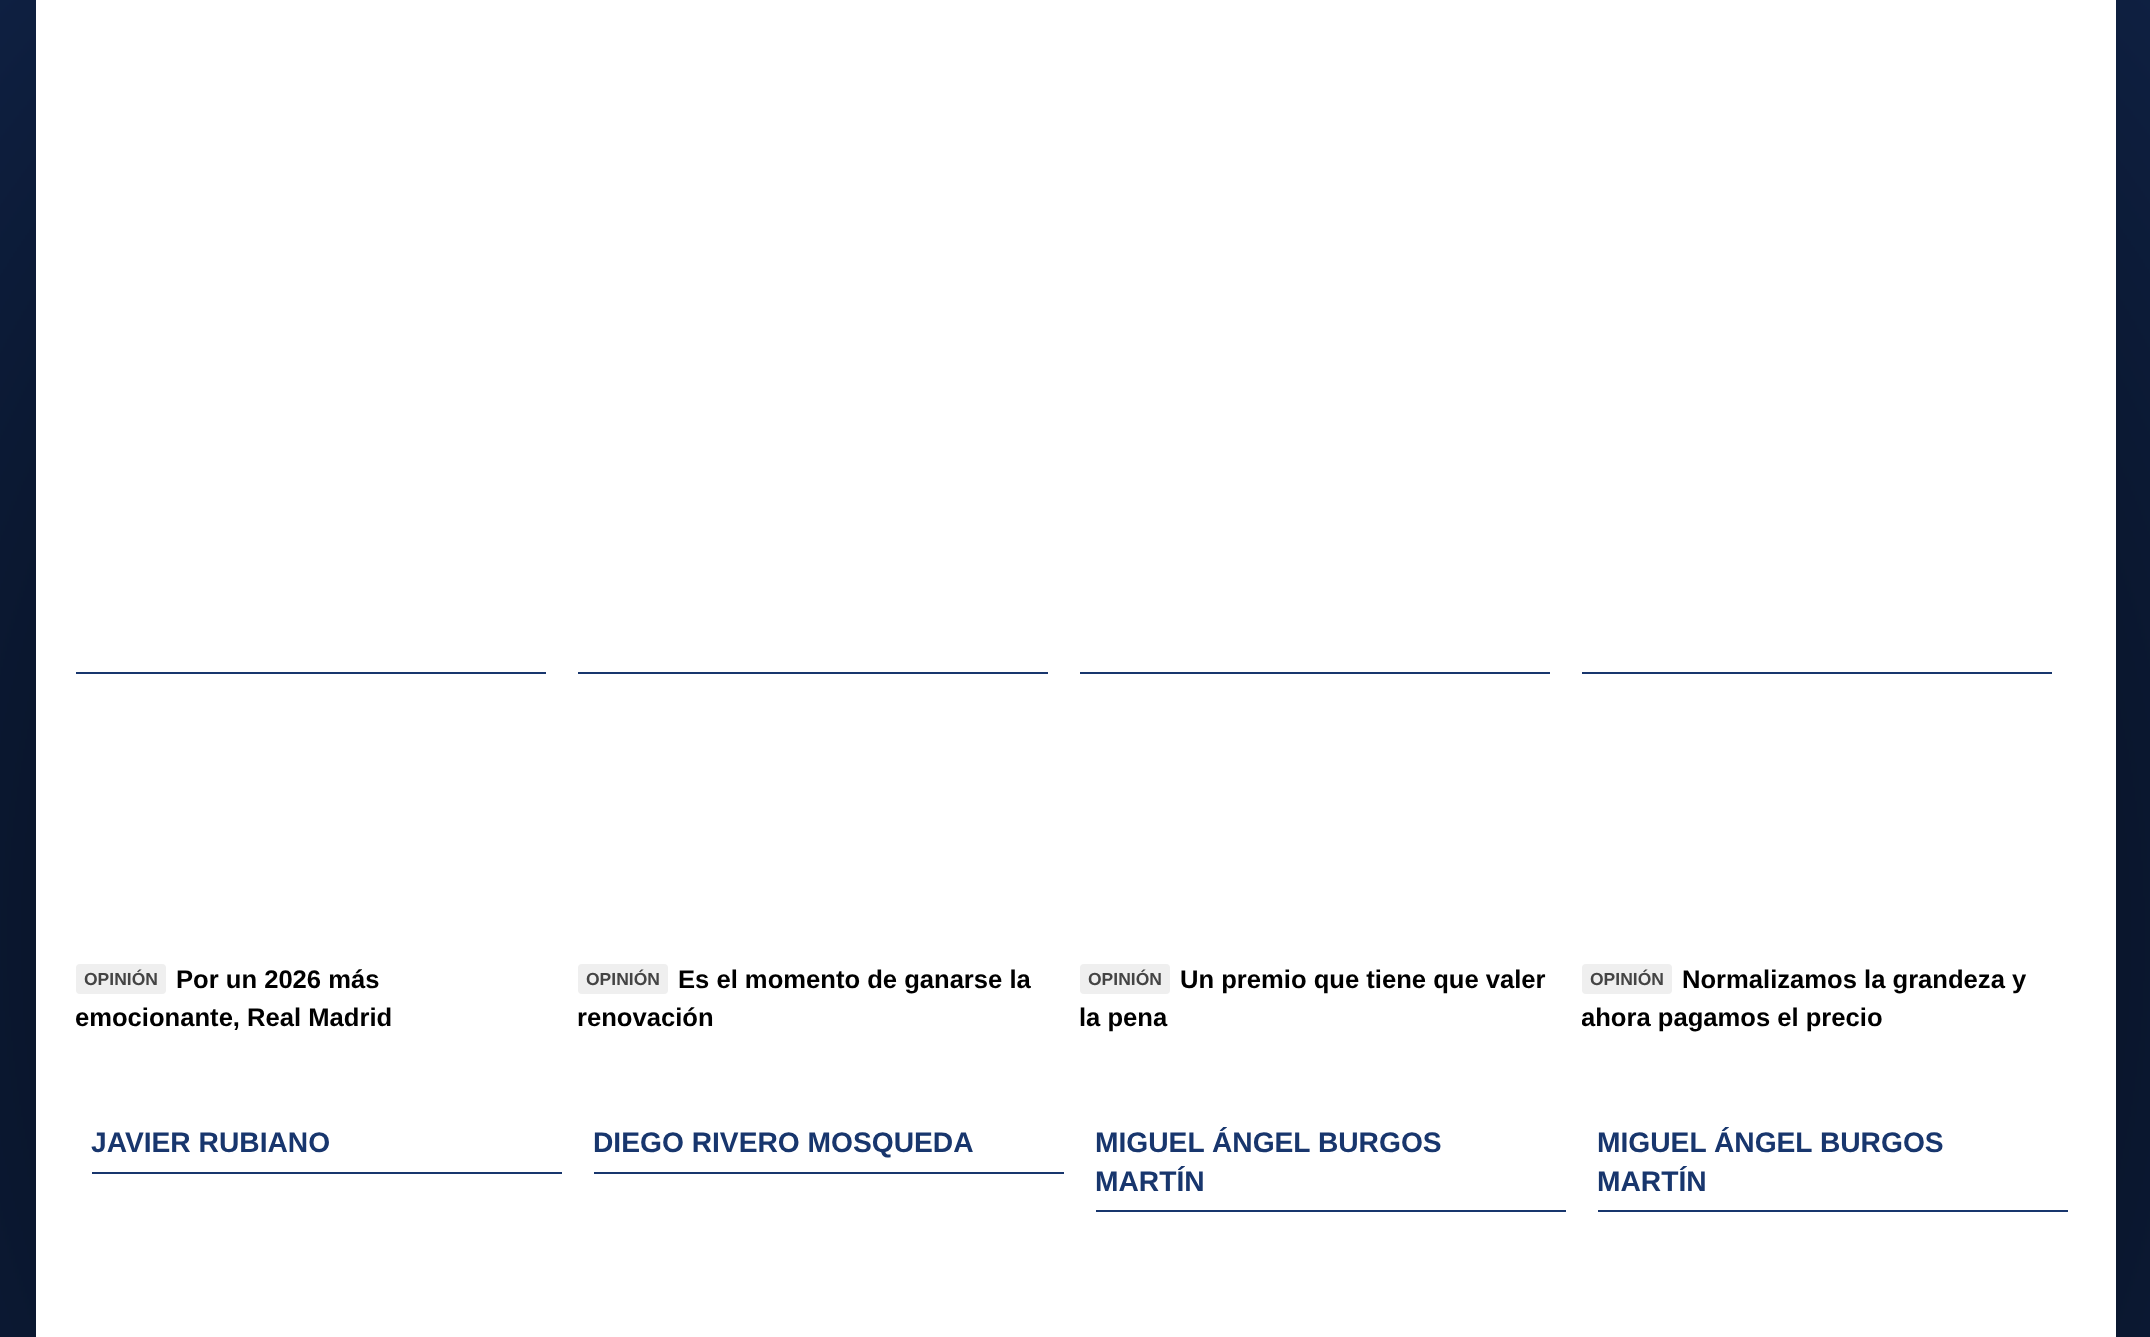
<!DOCTYPE html>
<meta charset="utf-8">
<style>body { margin: 0 } canvas { display: block }</style>
<canvas id="canvas" width="2150" height="1337"></canvas>
<img id="img1" src="images/1.png" hidden>
<script>
window.onload = function () {
    const canvas = document.getElementById('canvas');
    const context = canvas.getContext('2d');
    context.miterLimit = 4;
    context.fontKerning = 'normal';

    context.fillStyle = 'rgb(255, 255, 255)';
    context.fillRect(0, 0, 2150, 1337);
    context.drawImage(document.getElementById('img1'), 0, 0, 2150, 1337);
    context.fillRect(36, 0, 2080, 1337);
    context.fillStyle = 'rgb(24, 54, 109)';
    context.fillRect(76, 672, 470, 2);
    context.fillStyle = 'rgb(239, 239, 239)';
    context.beginPath();
    context.roundRect(76, 964, 90, 30, 4);
    context.fill();
    context.fillStyle = 'rgb(24, 54, 109)';
    context.fillRect(578, 672, 470, 2);
    context.fillStyle = 'rgb(239, 239, 239)';
    context.beginPath();
    context.roundRect(578, 964, 90, 30, 4);
    context.fill();
    context.fillStyle = 'rgb(24, 54, 109)';
    context.fillRect(1080, 672, 470, 2);
    context.fillStyle = 'rgb(239, 239, 239)';
    context.beginPath();
    context.roundRect(1080, 964, 90, 30, 4);
    context.fill();
    context.fillStyle = 'rgb(24, 54, 109)';
    context.fillRect(1582, 672, 470, 2);
    context.fillStyle = 'rgb(239, 239, 239)';
    context.beginPath();
    context.roundRect(1582, 964, 90, 30, 4);
    context.fill();
    context.fillStyle = 'rgb(24, 54, 109)';
    context.fillRect(92, 1172, 470, 2);
    context.fillRect(594, 1172, 470, 2);
    context.fillRect(1096, 1210, 470, 2);
    context.fillRect(1598, 1210, 470, 2);
    context.font = 'bold 17.5px Liberation Sans';
    context.fillStyle = 'rgb(68, 68, 68)';
    context.fillText('OPINIÓN', 84, 985);
    context.font = 'bold 25.6px Liberation Sans';
    context.fillStyle = 'rgb(0, 0, 0)';
    context.fillText('Por un 2026 más', 176, 988);
    context.fillText('emocionante, Real Madrid', 75, 1026);
    context.font = 'bold 17.5px Liberation Sans';
    context.fillStyle = 'rgb(68, 68, 68)';
    context.fillText('OPINIÓN', 586, 985);
    context.font = 'bold 25.6px Liberation Sans';
    context.fillStyle = 'rgb(0, 0, 0)';
    context.fillText('Es el momento de ganarse la', 678, 988);
    context.fillText('renovación', 577, 1026);
    context.font = 'bold 17.5px Liberation Sans';
    context.fillStyle = 'rgb(68, 68, 68)';
    context.fillText('OPINIÓN', 1088, 985);
    context.font = 'bold 25.6px Liberation Sans';
    context.fillStyle = 'rgb(0, 0, 0)';
    context.fillText('Un premio que tiene que valer', 1180, 988);
    context.fillText('la pena', 1079, 1026);
    context.font = 'bold 17.5px Liberation Sans';
    context.fillStyle = 'rgb(68, 68, 68)';
    context.fillText('OPINIÓN', 1590, 985);
    context.font = 'bold 25.6px Liberation Sans';
    context.fillStyle = 'rgb(0, 0, 0)';
    context.fillText('Normalizamos la grandeza y', 1682, 988);
    context.save();
    context.beginPath();
    context.rect(1582, 960, 470, 76);
    context.clip();
    context.fillText('ahora pagamos el precio', 1581, 1026);
    context.restore();
    context.font = 'bold 28.2px Liberation Sans';
    context.fillStyle = 'rgb(24, 54, 109)';
    context.fillText('JAVIER RUBIANO', 91, 1152);
    context.fillText('DIEGO RIVERO MOSQUEDA', 593, 1152);
    context.fillText('MIGUEL ÁNGEL BURGOS', 1095, 1152);
    context.fillText('MARTÍN', 1095, 1191);
    context.fillText('MIGUEL ÁNGEL BURGOS', 1597, 1152);
    context.fillText('MARTÍN', 1597, 1191);
};
</script>
